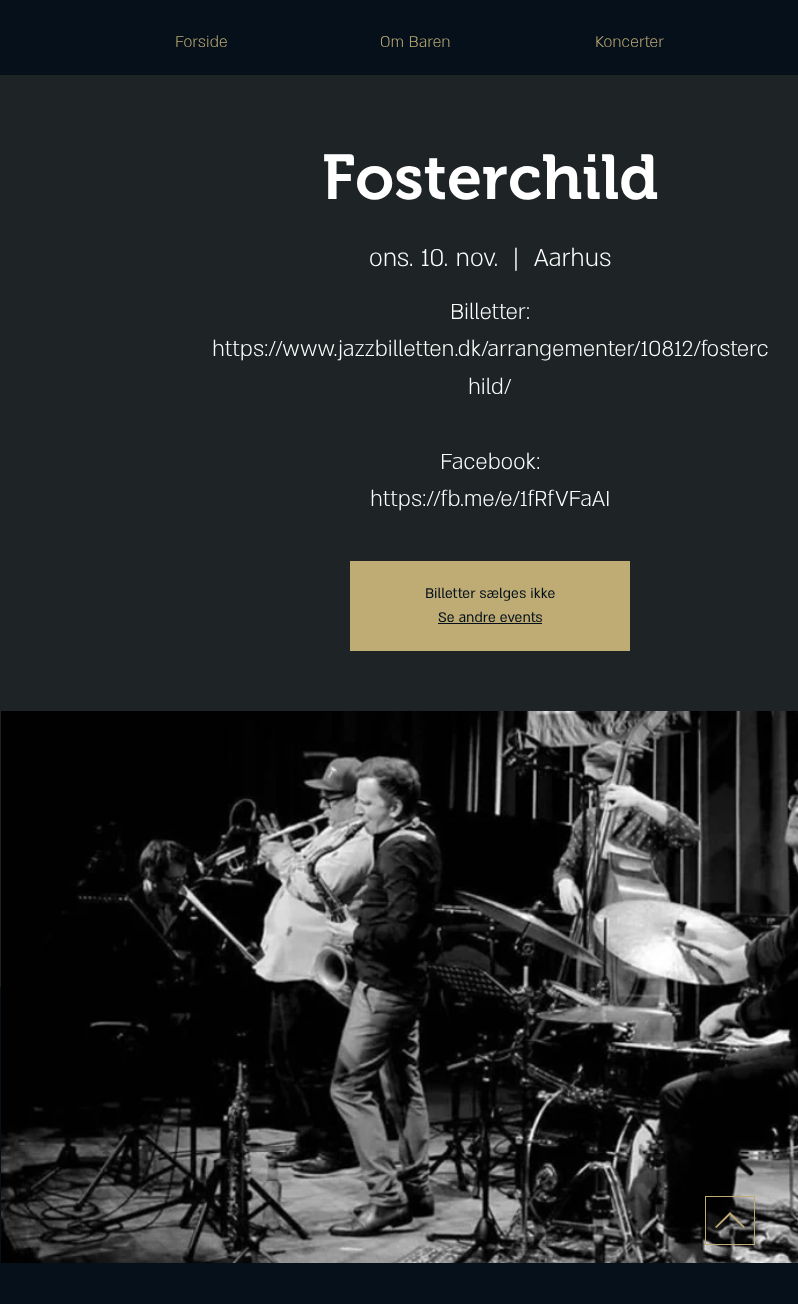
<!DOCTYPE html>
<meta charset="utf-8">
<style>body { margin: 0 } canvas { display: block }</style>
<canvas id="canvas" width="798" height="1304"></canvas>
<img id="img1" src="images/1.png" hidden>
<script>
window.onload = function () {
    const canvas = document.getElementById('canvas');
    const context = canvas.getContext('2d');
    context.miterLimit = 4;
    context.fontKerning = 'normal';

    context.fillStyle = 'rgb(6, 16, 27)';
    context.fillRect(0, 0, 798, 1304);
    context.fillStyle = 'rgb(30, 36, 37)';
    context.fillRect(0, 75, 798, 912);
    context.fillStyle = 'rgb(190, 172, 116)';
    context.fillRect(350, 561, 280, 90);
    context.fillStyle = 'rgb(6, 16, 27)';
    context.fillRect(438, 623, 104, 1);
    context.drawImage(document.getElementById('img1'), 1, 711, 797, 552);
    context.strokeStyle = 'rgb(190, 172, 116)';
    context.strokeRect(705.5, 1196.5, 49, 48);
    context.fillStyle = 'rgb(190, 172, 116)';
    context.beginPath();
    context.moveTo(715, 1227);
    context.lineTo(716.5, 1228);
    context.lineTo(730, 1215);
    context.lineTo(743.5, 1228);
    context.lineTo(745, 1227);
    context.lineTo(730, 1212);
    context.closePath();
    context.fill();
    context.font = '300 18px "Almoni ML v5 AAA"';
    context.fillText('Forside', 175, 47);
    context.fillText('Om Baren', 380, 47);
    context.fillText('Koncerter', 595, 47);
    context.font = '600 63px "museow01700"';
    context.fillStyle = 'rgb(255, 255, 255)';
    context.fillText('Fosterchild', 322, 199);
    context.font = '300 28px "Almoni ML v5 AAA"';
    context.fillText('ons. 10. nov.', 369, 266);
    context.fillText('|', 513, 266);
    context.fillText('Aarhus', 534, 266);
    context.font = '300 25px "Almoni ML v5 AAA"';
    context.fillText('Billetter:', 450, 319);
    context.fillText('https://www.jazzbilletten.dk/arrangementer/10812/fosterc', 212, 356);
    context.fillText('hild/', 468, 394);
    context.fillText('Facebook:', 440, 469);
    context.fillText('https://fb.me/e/1fRfVFaAI', 370, 506);
    context.font = '16px "Almoni ML v5 AAA"';
    context.fillStyle = 'rgb(6, 16, 27)';
    context.fillText('Billetter sælges ikke', 425, 598);
    context.fillText('Se andre events', 438, 622);
};
</script>
